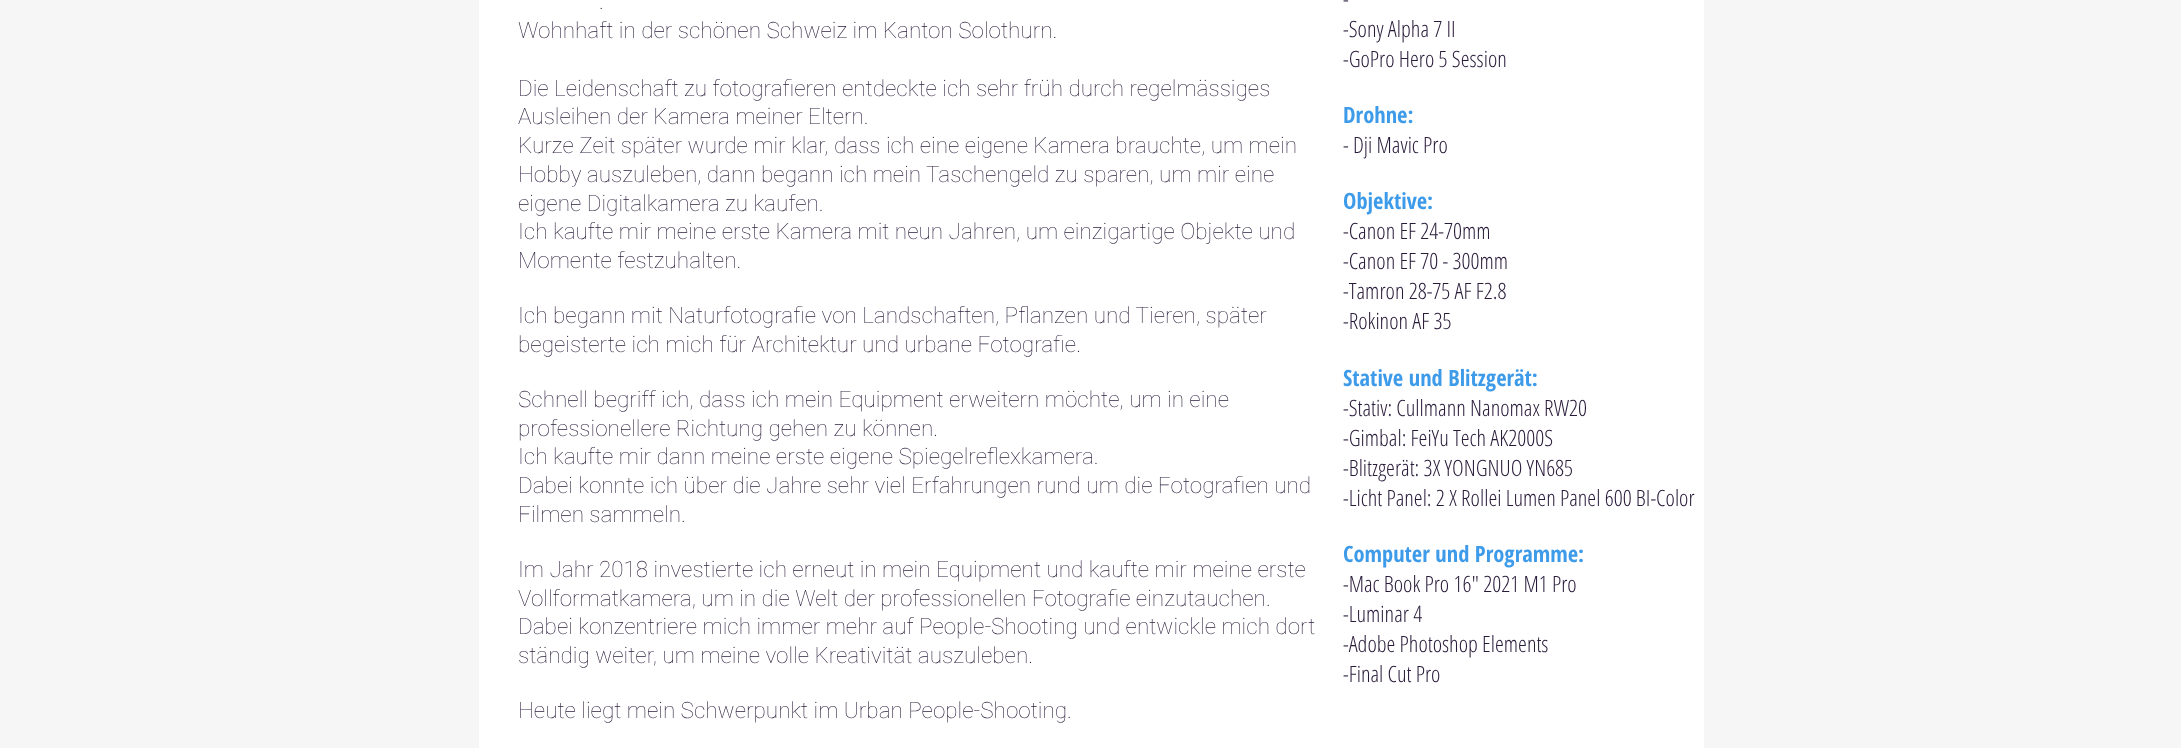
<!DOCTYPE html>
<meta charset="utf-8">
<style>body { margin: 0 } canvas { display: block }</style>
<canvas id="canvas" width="2181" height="748"></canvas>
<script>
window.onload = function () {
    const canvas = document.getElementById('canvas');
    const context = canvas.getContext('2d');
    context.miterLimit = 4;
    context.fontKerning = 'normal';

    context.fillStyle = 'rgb(246, 246, 246)';
    context.fillRect(0, 0, 2181, 748);
    context.fillStyle = 'rgb(255, 255, 255)';
    context.fillRect(479, 0, 1225, 748);
    context.font = '100 22.5px Roboto';
    context.fillStyle = 'rgb(40, 26, 57)';
    context.fillText('.', 599, 9);
    context.fillText('Wohnhaft in der schönen Schweiz im Kanton Solothurn.', 518, 38);
    context.fillText('Die Leidenschaft zu fotografieren entdeckte ich sehr früh durch regelmässiges', 518, 96);
    context.fillText('Ausleihen der Kamera meiner Eltern.', 518, 124);
    context.fillText('Kurze Zeit später wurde mir klar, dass ich eine eigene Kamera brauchte, um mein', 518, 153);
    context.fillText('Hobby auszuleben, dann begann ich mein Taschengeld zu sparen, um mir eine', 518, 182);
    context.fillText('eigene Digitalkamera zu kaufen.', 518, 211);
    context.fillText('Ich kaufte mir meine erste Kamera mit neun Jahren, um einzigartige Objekte und', 518, 239);
    context.fillText('Momente festzuhalten.', 518, 268);
    context.fillText('Ich begann mit Naturfotografie von Landschaften, Pflanzen und Tieren, später', 518, 323);
    context.fillText('begeisterte ich mich für Architektur und urbane Fotografie.', 518, 352);
    context.fillText('Schnell begriff ich, dass ich mein Equipment erweitern möchte, um in eine', 518, 407);
    context.fillText('professionellere Richtung gehen zu können.', 518, 436);
    context.fillText('Ich kaufte mir dann meine erste eigene Spiegelreflexkamera.', 518, 464);
    context.fillText('Dabei konnte ich über die Jahre sehr viel Erfahrungen rund um die Fotografien und', 518, 493);
    context.fillText('Filmen sammeln.', 518, 522);
    context.fillText('Im Jahr 2018 investierte ich erneut in mein Equipment und kaufte mir meine erste', 518, 577);
    context.fillText('Vollformatkamera, um in die Welt der professionellen Fotografie einzutauchen.', 518, 606);
    context.fillText('Dabei konzentriere mich immer mehr auf People-Shooting und entwickle mich dort', 518, 634);
    context.fillText('ständig weiter, um meine volle Kreativität auszuleben.', 518, 663);
    context.fillText('Heute liegt mein Schwerpunkt im Urban People-Shooting.', 518, 718);
    context.font = '300 22.5px Open Sans Condensed';
    context.fillText('-', 1343, 7);
    context.fillText('-Sony Alpha 7 II', 1343, 37);
    context.fillText('-GoPro Hero 5 Session', 1343, 67);
    context.font = 'bold 22.5px Open Sans Condensed';
    context.fillStyle = 'rgb(61, 155, 233)';
    context.fillText('Drohne:', 1343, 123);
    context.font = '300 22.5px Open Sans Condensed';
    context.fillStyle = 'rgb(40, 26, 57)';
    context.fillText('- Dji Mavic Pro', 1343, 153);
    context.font = 'bold 22.5px Open Sans Condensed';
    context.fillStyle = 'rgb(61, 155, 233)';
    context.fillText('Objektive:', 1343, 209);
    context.font = '300 22.5px Open Sans Condensed';
    context.fillStyle = 'rgb(40, 26, 57)';
    context.fillText('-Canon EF 24-70mm', 1343, 239);
    context.fillText('-Canon EF 70 - 300mm', 1343, 269);
    context.fillText('-Tamron 28-75 AF F2.8', 1343, 299);
    context.fillText('-Rokinon AF 35', 1343, 329);
    context.font = 'bold 22.5px Open Sans Condensed';
    context.fillStyle = 'rgb(61, 155, 233)';
    context.fillText('Stative und Blitzgerät:', 1343, 386);
    context.font = '300 22.5px Open Sans Condensed';
    context.fillStyle = 'rgb(40, 26, 57)';
    context.fillText('-Stativ: Cullmann Nanomax RW20', 1343, 416);
    context.fillText('-Gimbal: FeiYu Tech AK2000S', 1343, 446);
    context.fillText('-Blitzgerät: 3X YONGNUO YN685', 1343, 476);
    context.fillText('-Licht Panel: 2 X Rollei Lumen Panel 600 BI-Color', 1343, 506);
    context.font = 'bold 22.5px Open Sans Condensed';
    context.fillStyle = 'rgb(61, 155, 233)';
    context.fillText('Computer und Programme:', 1343, 562);
    context.font = '300 22.5px Open Sans Condensed';
    context.fillStyle = 'rgb(40, 26, 57)';
    context.fillText('-Mac Book Pro 16" 2021 M1 Pro', 1343, 592);
    context.fillText('-Luminar 4', 1343, 622);
    context.fillText('-Adobe Photoshop Elements', 1343, 652);
    context.fillText('-Final Cut Pro', 1343, 682);
};
</script>
